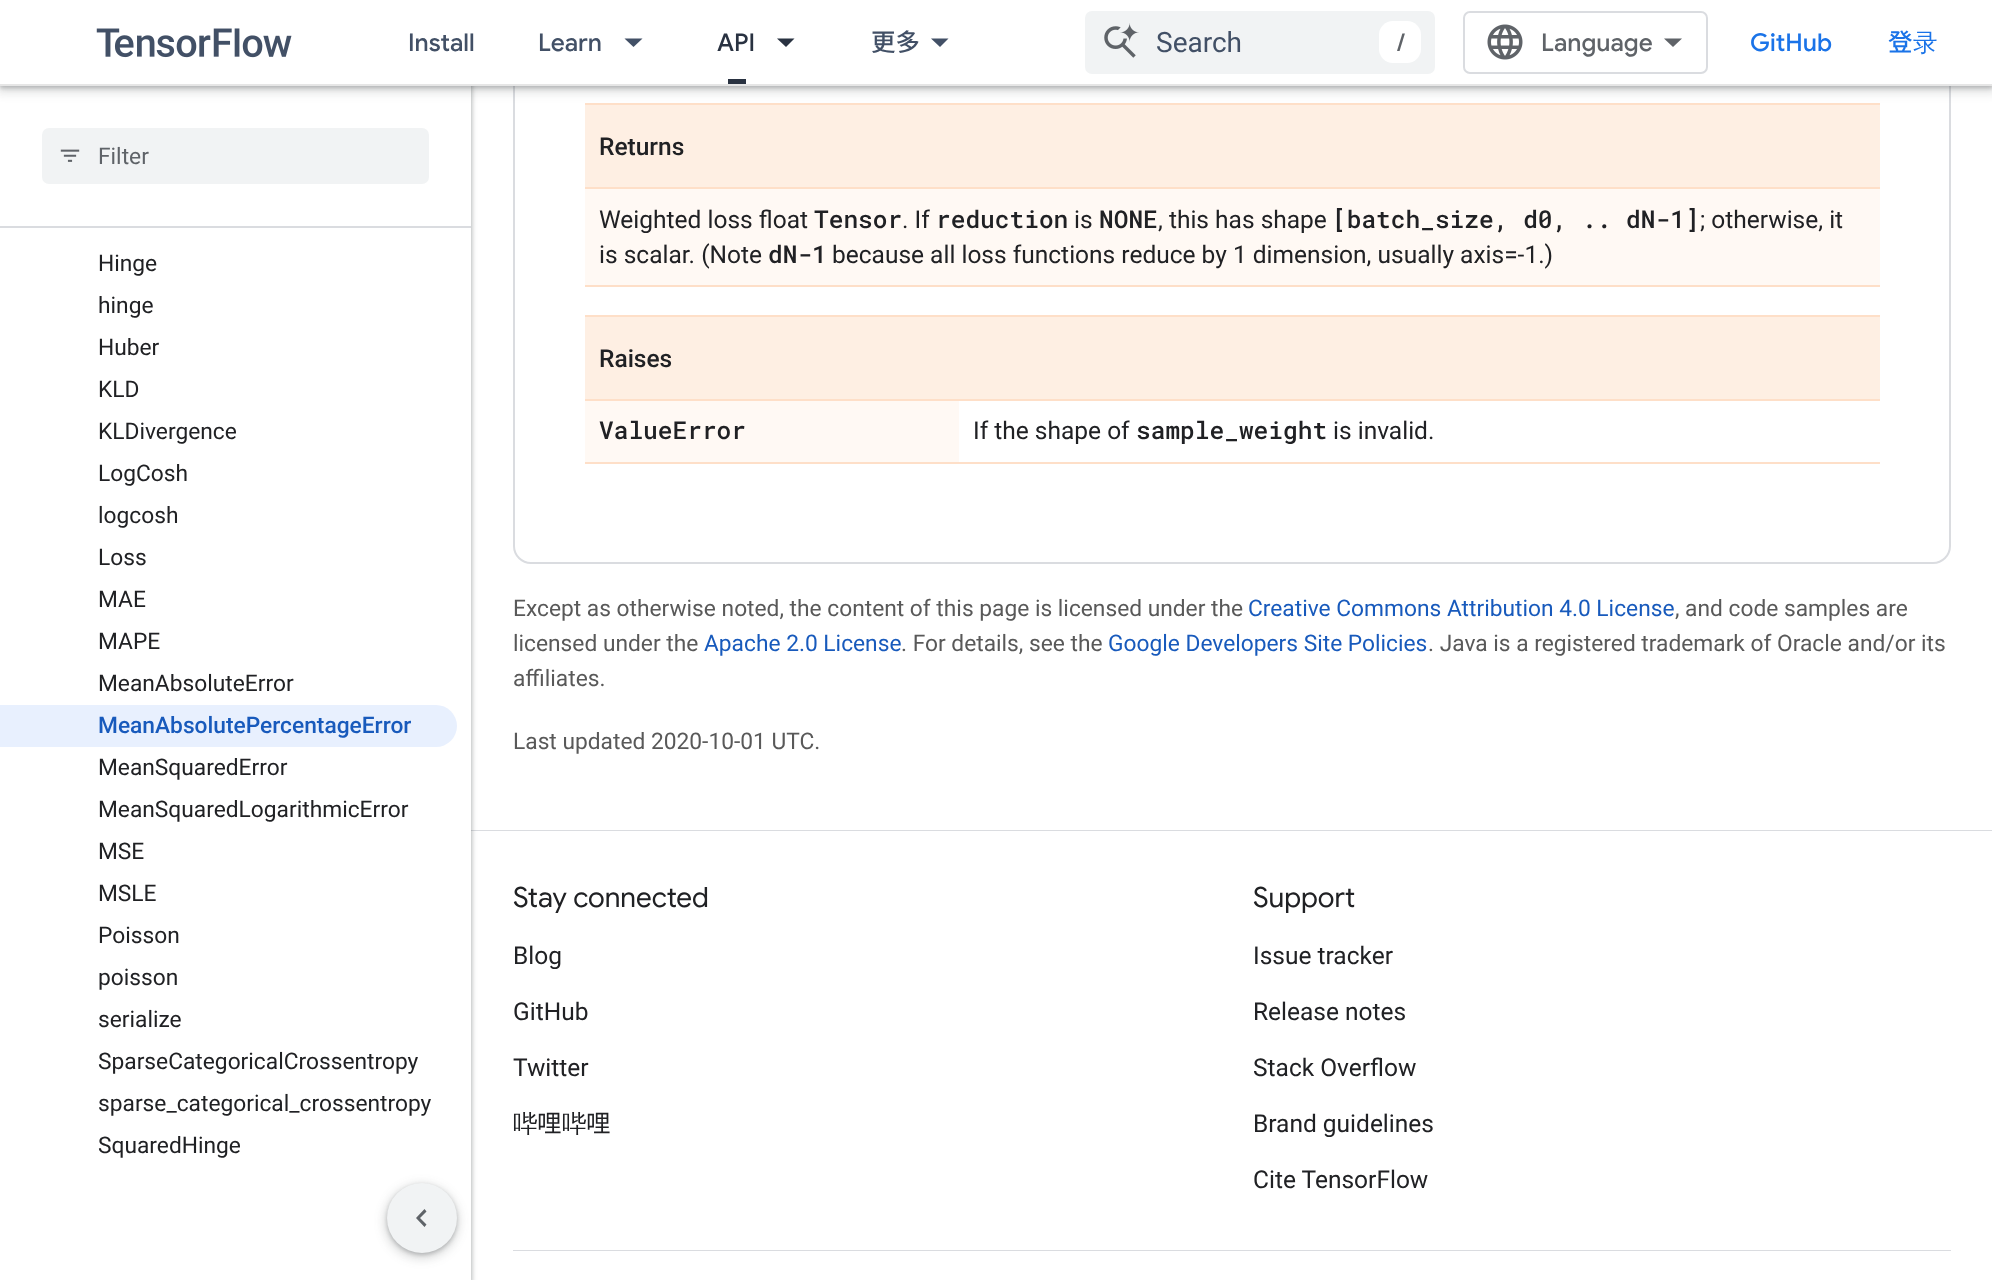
<!DOCTYPE html>
<meta charset="utf-8">
<style>body { margin: 0 } canvas { display: block }</style>
<canvas id="canvas" width="1992" height="1280"></canvas>
<img id="img1" src="images/1.png" hidden>
<img id="img2" src="images/2.png" hidden>
<img id="img3" src="images/3.png" hidden>
<img id="img4" src="images/4.png" hidden>
<script>
window.onload = function () {
    const canvas = document.getElementById('canvas');
    const context = canvas.getContext('2d');
    context.miterLimit = 4;
    context.fontKerning = 'normal';

    context.fillStyle = 'rgb(255, 255, 255)';
    context.fillRect(0, 0, 1992, 1280);
    context.fillStyle = 'rgb(218, 220, 224)';
    context.fillRect(471, 830, 1521, 1);
    context.fillStyle = 'rgba(60, 64, 67, 0.15)';
    context.filter = 'blur(2.5px)';
    context.beginPath();
    context.rect(-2, 0, 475, 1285);
    context.fill();
    context.filter = 'none';
    context.fillStyle = 'rgba(60, 64, 67, 0.3)';
    context.filter = 'blur(2px)';
    context.beginPath();
    context.rect(0, 2, 471, 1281);
    context.fill();
    context.filter = 'none';
    context.fillStyle = 'rgb(255, 255, 255)';
    context.fillRect(0, 228, 471, 1052);
    context.fillRect(0, 86, 471, 140);
    context.beginPath();
    context.roundRect(514, -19, 1436, 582, 17);
    context.strokeStyle = 'rgb(218, 220, 224)';
    context.lineWidth = 2;
    context.stroke();
    context.fillStyle = 'rgb(254, 239, 227)';
    context.fillRect(585, 105, 1295, 82);
    context.fillStyle = 'rgb(254, 223, 200)';
    context.fillRect(585, 103, 1295, 2);
    context.fillStyle = 'rgba(60, 64, 67, 0.15)';
    context.filter = 'blur(5px)';
    context.beginPath();
    context.rect(-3, -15, 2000, 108);
    context.fill();
    context.filter = 'none';
    context.fillStyle = 'rgba(60, 64, 67, 0.3)';
    context.filter = 'blur(2px)';
    context.beginPath();
    context.rect(0, -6, 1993, 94);
    context.fill();
    context.filter = 'none';
    context.fillStyle = 'rgb(255, 255, 255)';
    context.fillRect(0, 0, 1992, 84);
    context.fillStyle = 'rgb(230, 230, 230)';
    context.fillRect(0, 84, 1992, 2);
    context.drawImage(document.getElementById('img1'), 96, 28, 196, 30);
    context.fillStyle = 'rgb(66, 80, 102)';
    context.beginPath();
    context.moveTo(624.5, 38.5);
    context.lineTo(642.5, 38.5);
    context.lineTo(633.5, 47);
    context.closePath();
    context.fill();
    context.fillStyle = 'rgb(41, 50, 65)';
    context.fillRect(728, 79, 18, 5);
    context.beginPath();
    context.moveTo(777, 38.5);
    context.lineTo(794.5, 38.5);
    context.lineTo(786, 47);
    context.closePath();
    context.fill();
    context.fillStyle = 'rgb(66, 80, 102)';
    context.beginPath();
    context.moveTo(931, 38.5);
    context.lineTo(948.5, 38.5);
    context.lineTo(940, 47);
    context.closePath();
    context.fill();
    context.fillStyle = 'rgb(241, 243, 244)';
    context.beginPath();
    context.roundRect(1085, 11, 350, 63, 7);
    context.fill();
    context.drawImage(document.getElementById('img2'), 1104, 23, 35, 35);
    context.fillStyle = 'rgb(255, 255, 255)';
    context.beginPath();
    context.roundRect(1379, 21, 42, 42, 14);
    context.fill();
    context.beginPath();
    context.roundRect(1464, 12, 243, 61, 6);
    context.stroke();
    context.drawImage(document.getElementById('img3'), 1487, 24, 36, 36);
    context.fillStyle = 'rgb(95, 99, 104)';
    context.beginPath();
    context.moveTo(1673, 47);
    context.lineTo(1664, 38.5);
    context.lineTo(1682, 38.5);
    context.closePath();
    context.fill();
    context.fillStyle = 'rgb(218, 220, 224)';
    context.fillRect(0, 226, 471, 2);
    context.fillStyle = 'rgb(241, 243, 244)';
    context.beginPath();
    context.roundRect(42, 128, 387, 56, 7);
    context.fill();
    context.drawImage(document.getElementById('img4'), 60, 149, 20, 13);
    context.fillStyle = 'rgb(232, 240, 254)';
    context.beginPath();
    context.roundRect(0, 705, 457, 42, [0, 21, 21, 0]);
    context.fill();
    context.fillStyle = 'rgb(254, 223, 200)';
    context.fillRect(585, 187, 1295, 2);
    context.fillRect(585, 285, 1295, 2);
    context.fillStyle = 'rgb(255, 249, 244)';
    context.fillRect(585, 189, 1295, 96);
    context.fillStyle = 'rgb(254, 239, 227)';
    context.fillRect(585, 317, 1295, 82);
    context.fillStyle = 'rgb(254, 223, 200)';
    context.fillRect(585, 315, 1295, 2);
    context.fillRect(585, 399, 1295, 2);
    context.fillRect(585, 462, 1295, 2);
    context.fillStyle = 'rgb(255, 249, 244)';
    context.fillRect(585, 401, 374, 61);
    context.fillStyle = 'rgb(218, 220, 224)';
    context.fillRect(513, 1250, 1438, 1);
    context.fillStyle = 'rgba(60, 64, 67, 0.15)';
    context.filter = 'blur(5px)';
    context.beginPath();
    context.roundRect(383, 1183, 77, 77, 38.5);
    context.fill();
    context.filter = 'none';
    context.fillStyle = 'rgba(60, 64, 67, 0.3)';
    context.filter = 'blur(2px)';
    context.beginPath();
    context.roundRect(387, 1185, 70, 70, 35);
    context.fill();
    context.filter = 'none';
    context.fillStyle = 'rgb(241, 243, 244)';
    context.beginPath();
    context.arc(422, 1218, 35, 0, 2 * Math.PI);
    context.fill();
    context.fillStyle = 'rgb(95, 99, 104)';
    context.beginPath();
    context.moveTo(426.5, 1211.5);
    context.lineTo(420, 1218);
    context.lineTo(426.5, 1224.5);
    context.lineTo(424.5, 1227);
    context.lineTo(416, 1218);
    context.lineTo(424.5, 1209);
    context.closePath();
    context.fill();
    context.font = '500 24.5px Google Sans';
    context.fillStyle = 'rgb(66, 80, 102)';
    context.fillText('Install', 408, 51);
    context.fillText('Learn', 538, 51);
    context.fillStyle = 'rgb(41, 50, 65)';
    context.fillText('API', 717, 51);
    context.font = '500 24.5px Noto Sans JP';
    context.fillStyle = 'rgb(66, 80, 102)';
    context.fillText('更多', 871, 51);
    context.font = '28px Roboto';
    context.fillText('Search', 1156, 52);
    context.font = '500 24.5px Google Sans';
    context.fillStyle = 'rgb(95, 99, 104)';
    context.fillText('/', 1397, 51);
    context.fillText('Language', 1541, 51);
    context.fillStyle = 'rgb(26, 115, 232)';
    context.fillText('GitHub', 1750, 51);
    context.font = '500 24.5px Noto Sans JP';
    context.fillText('登', 1888, 51);
    context.font = '500 24.5px WenQuanYi Zen Hei';
    context.fillText('录', 1913, 51);
    context.font = '22.75px Roboto';
    context.fillStyle = 'rgb(95, 99, 104)';
    context.fillText('Filter', 98, 164);
    context.fillStyle = 'rgb(32, 33, 36)';
    context.fillText('Hinge', 98, 271);
    context.fillText('hinge', 98, 313);
    context.fillText('Huber', 98, 355);
    context.fillText('KLD', 98, 397);
    context.fillText('KLDivergence', 98, 439);
    context.fillText('LogCosh', 98, 481);
    context.fillText('logcosh', 98, 523);
    context.fillText('Loss', 98, 565);
    context.fillText('MAE', 98, 607);
    context.fillText('MAPE', 98, 649);
    context.fillText('MeanAbsoluteError', 98, 691);
    context.font = '500 22.75px Roboto';
    context.fillStyle = 'rgb(24, 90, 188)';
    context.fillText('MeanAbsolutePercentageError', 98, 733);
    context.font = '22.75px Roboto';
    context.fillStyle = 'rgb(32, 33, 36)';
    context.fillText('MeanSquaredError', 98, 775);
    context.fillText('MeanSquaredLogarithmicError', 98, 817);
    context.fillText('MSE', 98, 859);
    context.fillText('MSLE', 98, 901);
    context.fillText('Poisson', 98, 943);
    context.fillText('poisson', 98, 985);
    context.fillText('serialize', 98, 1027);
    context.fillText('SparseCategoricalCrossentropy', 98, 1069);
    context.fillText('sparse_categorical_crossentropy', 98, 1111);
    context.fillText('SquaredHinge', 98, 1153);
    context.font = '500 24.5px Roboto';
    context.fillText('Returns', 599, 155);
    context.font = '24.5px Roboto';
    context.fillText('Weighted loss float', 599, 228);
    context.font = '500 24.5px Roboto Mono';
    context.fillText('Tensor', 814, 228);
    context.font = '24.5px Roboto';
    context.fillText('. If', 902, 228);
    context.font = '500 24.5px Roboto Mono';
    context.fillText('reduction', 936, 228);
    context.font = '24.5px Roboto';
    context.fillText('is', 1074, 228);
    context.font = '500 24.5px Roboto Mono';
    context.fillText('NONE', 1099, 228);
    context.font = '24.5px Roboto';
    context.fillText(', this has shape', 1158, 228);
    context.font = '500 24.5px Roboto Mono';
    context.fillText('[batch_size, d0, .. dN-1]', 1332, 228);
    context.font = '24.5px Roboto';
    context.fillText('; otherwise, it', 1700, 228);
    context.fillText('is scalar. (Note', 599, 263);
    context.font = '500 24.5px Roboto Mono';
    context.fillText('dN-1', 768, 263);
    context.font = '24.5px Roboto';
    context.fillText('because all loss functions reduce by 1 dimension, usually axis=-1.)', 832, 263);
    context.font = '500 24.5px Roboto';
    context.fillText('Raises', 599, 367);
    context.font = '500 24.5px Roboto Mono';
    context.fillText('ValueError', 599, 439);
    context.font = '24.5px Roboto';
    context.fillText('If the shape of', 973, 439);
    context.font = '500 24.5px Roboto Mono';
    context.fillText('sample_weight', 1136, 439);
    context.font = '24.5px Roboto';
    context.fillText('is invalid.', 1333, 439);
    context.font = '22.75px Roboto';
    context.fillStyle = 'rgb(89, 89, 89)';
    context.fillText('Except as otherwise noted, the content of this page is licensed under the', 513, 616);
    context.fillStyle = 'rgb(24, 90, 188)';
    context.fillText('Creative Commons Attribution 4.0 License', 1248, 616);
    context.fillStyle = 'rgb(89, 89, 89)';
    context.fillText(', and code samples are', 1675, 616);
    context.fillText('licensed under the', 513, 651);
    context.fillStyle = 'rgb(24, 90, 188)';
    context.fillText('Apache 2.0 License', 704, 651);
    context.fillStyle = 'rgb(89, 89, 89)';
    context.fillText('. For details, see the', 901, 651);
    context.fillStyle = 'rgb(24, 90, 188)';
    context.fillText('Google Developers Site Policies', 1108, 651);
    context.fillStyle = 'rgb(89, 89, 89)';
    context.fillText('. Java is a registered trademark of Oracle and/or its', 1428, 651);
    context.fillText('affiliates.', 513, 686);
    context.fillText('Last updated 2020-10-01 UTC.', 513, 749);
    context.font = '28px Google Sans';
    context.fillStyle = 'rgb(32, 33, 36)';
    context.fillText('Stay connected', 513, 907);
    context.font = '24.5px Roboto';
    context.fillText('Blog', 513, 964);
    context.fillText('GitHub', 513, 1020);
    context.fillText('Twitter', 513, 1076);
    context.font = '500 24.5px WenQuanYi Zen Hei';
    context.fillText('哔', 513, 1132);
    context.font = '24.5px Noto Sans JP';
    context.fillText('哩', 537, 1132);
    context.font = '500 24.5px WenQuanYi Zen Hei';
    context.fillText('哔', 562, 1132);
    context.font = '24.5px Noto Sans JP';
    context.fillText('哩', 586, 1132);
    context.font = '28px Google Sans';
    context.fillText('Support', 1253, 907);
    context.font = '24.5px Roboto';
    context.fillText('Issue tracker', 1253, 964);
    context.fillText('Release notes', 1253, 1020);
    context.fillText('Stack Overflow', 1253, 1076);
    context.fillText('Brand guidelines', 1253, 1132);
    context.fillText('Cite TensorFlow', 1253, 1188);
};
</script>
